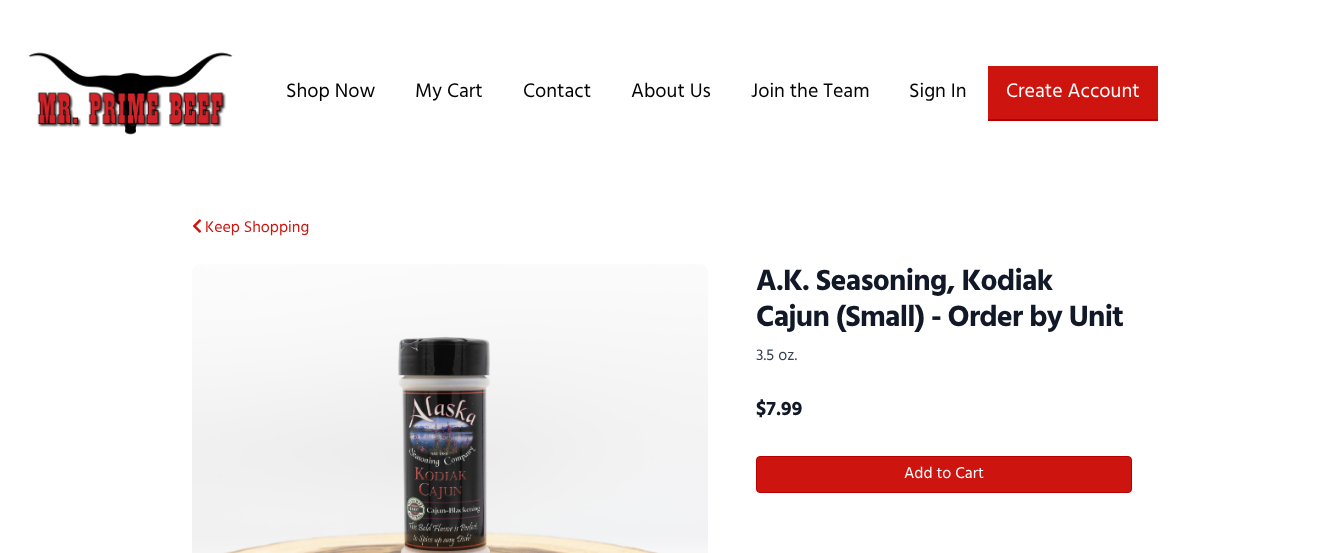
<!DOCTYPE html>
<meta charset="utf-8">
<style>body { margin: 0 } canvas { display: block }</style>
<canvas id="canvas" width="1323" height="553"></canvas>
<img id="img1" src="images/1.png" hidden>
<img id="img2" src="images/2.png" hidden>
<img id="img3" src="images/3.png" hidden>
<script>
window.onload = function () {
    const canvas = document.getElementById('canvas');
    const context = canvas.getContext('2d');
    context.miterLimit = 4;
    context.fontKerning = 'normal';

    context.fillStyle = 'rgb(255, 255, 255)';
    context.fillRect(0, 0, 1323, 553);
    context.drawImage(document.getElementById('img1'), 28, 52, 205, 83);
    context.fillStyle = 'rgb(206, 20, 14)';
    context.fillRect(988, 66, 170, 53);
    context.fillStyle = 'rgb(186, 0, 0)';
    context.fillRect(988, 119, 170, 2);
    context.drawImage(document.getElementById('img2'), 192, 219, 10, 14);
    context.drawImage(document.getElementById('img3'), 192, 264, 516, 289);
    context.fillStyle = 'rgb(206, 20, 14)';
    context.beginPath();
    context.roundRect(756.5, 456.5, 375, 36, 3.5);
    context.fill();
    context.strokeStyle = 'rgb(186, 0, 0)';
    context.stroke();
    context.font = '20px Hind';
    context.fillStyle = 'rgb(0, 0, 0)';
    context.fillText('Shop Now', 286, 97);
    context.fillText('My Cart', 415, 97);
    context.fillText('Contact', 523, 97);
    context.fillText('About Us', 631, 97);
    context.fillText('Join the Team', 751, 97);
    context.fillText('Sign In', 909, 97);
    context.fillStyle = 'rgb(255, 255, 255)';
    context.fillText('Create Account', 1006, 97);
    context.font = '16px Hind';
    context.fillStyle = 'rgb(206, 20, 14)';
    context.fillText('Keep Shopping', 205, 232);
    context.letterSpacing = '-0.75px';
    context.font = 'bold 30px Hind';
    context.fillStyle = 'rgb(17, 24, 39)';
    context.fillText('A.K. Seasoning, Kodiak', 756, 290);
    context.fillText('Cajun (Small) - Order by Unit', 756, 326);
    context.letterSpacing = '0px';
    context.font = '16px Hind';
    context.fillStyle = 'rgb(55, 65, 81)';
    context.fillText('3.5 oz.', 756, 360);
    context.font = 'bold 20px Hind';
    context.fillStyle = 'rgb(17, 24, 39)';
    context.fillText('$7.99', 756, 415);
    context.font = '16px Hind';
    context.fillStyle = 'rgb(255, 255, 255)';
    context.fillText('Add to Cart', 904, 478);
};
</script>
